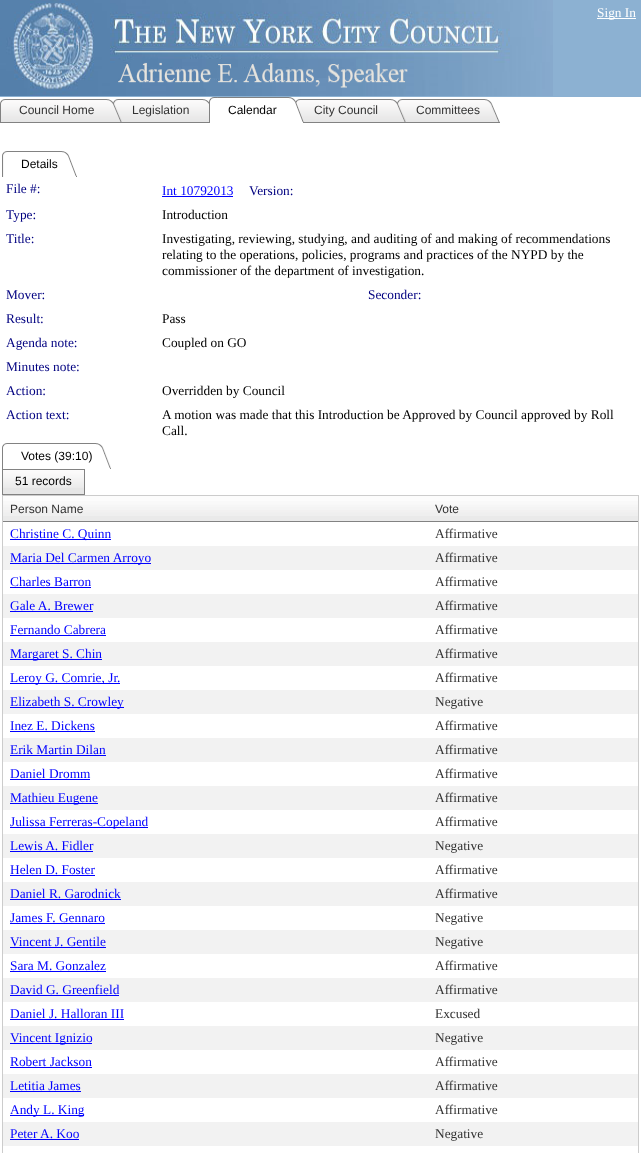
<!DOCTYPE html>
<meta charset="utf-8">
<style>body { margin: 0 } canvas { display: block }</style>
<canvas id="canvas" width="641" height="1153"></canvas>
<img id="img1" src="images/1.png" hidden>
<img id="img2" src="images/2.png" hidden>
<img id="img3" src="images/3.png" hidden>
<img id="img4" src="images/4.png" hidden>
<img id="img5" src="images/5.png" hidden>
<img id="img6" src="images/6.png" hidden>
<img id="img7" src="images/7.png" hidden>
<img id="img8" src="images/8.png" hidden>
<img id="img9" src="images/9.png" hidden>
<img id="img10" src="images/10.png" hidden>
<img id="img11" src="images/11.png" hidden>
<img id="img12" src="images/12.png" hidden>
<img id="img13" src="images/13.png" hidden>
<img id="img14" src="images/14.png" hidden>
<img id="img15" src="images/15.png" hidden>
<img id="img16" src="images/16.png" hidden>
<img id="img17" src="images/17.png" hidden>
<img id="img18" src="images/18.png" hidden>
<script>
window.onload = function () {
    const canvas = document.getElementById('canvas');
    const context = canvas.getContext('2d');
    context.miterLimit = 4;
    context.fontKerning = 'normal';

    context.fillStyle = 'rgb(255, 255, 255)';
    context.fillRect(0, 0, 641, 1153);
    context.fillStyle = 'rgb(140, 177, 210)';
    context.fillRect(0, 0, 641, 97);
    context.drawImage(document.getElementById('img1'), 0, 0, 553, 96);
    context.fillStyle = 'rgb(255, 255, 255)';
    context.fillRect(597, 18, 39, 1);
    context.drawImage(document.getElementById('img2'), 0, 99, 9, 24);
    context.drawImage(document.getElementById('img3'), 9, 99, 104, 24);
    context.drawImage(document.getElementById('img4'), 113, 99, 9, 24);
    context.drawImage(document.getElementById('img5'), 122, 99, 87, 24);
    context.drawImage(document.getElementById('img6'), 209, 97, 9, 26);
    context.drawImage(document.getElementById('img7'), 218, 97, 77, 5);
    context.drawImage(document.getElementById('img8'), 295, 99, 9, 24);
    context.drawImage(document.getElementById('img9'), 304, 99, 93, 24);
    context.drawImage(document.getElementById('img10'), 397, 99, 9, 24);
    context.drawImage(document.getElementById('img11'), 406, 99, 94, 24);
    context.drawImage(document.getElementById('img12'), 2, 151, 9, 26);
    context.drawImage(document.getElementById('img13'), 11, 151, 66, 26);
    context.fillStyle = 'rgb(0, 0, 255)';
    context.fillRect(162, 196, 71, 1);
    context.drawImage(document.getElementById('img14'), 2, 443, 9, 26);
    context.drawImage(document.getElementById('img15'), 11, 443, 100, 26);
    context.fillStyle = 'rgb(230, 230, 230)';
    context.fillRect(3, 488, 81, 6);
    context.drawImage(document.getElementById('img16'), 3, 470, 81, 18);
    context.strokeStyle = 'rgb(130, 130, 130)';
    context.strokeRect(2.5, 469.5, 82, 25);
    context.strokeStyle = 'rgb(204, 204, 204)';
    context.strokeRect(2.5, 495.5, 636, 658);
    context.fillStyle = 'rgb(234, 234, 234)';
    context.fillRect(3, 516, 635, 5);
    context.drawImage(document.getElementById('img17'), 3, 496, 425, 20);
    context.fillStyle = 'rgb(130, 130, 130)';
    context.fillRect(3, 521, 635, 1);
    context.drawImage(document.getElementById('img18'), 428, 496, 210, 20);
    context.fillStyle = 'rgb(0, 0, 255)';
    context.fillRect(10, 539, 101, 1);
    context.fillStyle = 'rgb(242, 242, 242)';
    context.fillRect(3, 546, 635, 24);
    context.fillStyle = 'rgb(0, 0, 255)';
    context.fillRect(10, 563, 141, 1);
    context.fillRect(10, 587, 81, 1);
    context.fillStyle = 'rgb(242, 242, 242)';
    context.fillRect(3, 594, 635, 24);
    context.fillStyle = 'rgb(0, 0, 255)';
    context.fillRect(10, 611, 83, 1);
    context.fillRect(10, 635, 96, 1);
    context.fillStyle = 'rgb(242, 242, 242)';
    context.fillRect(3, 642, 635, 24);
    context.fillStyle = 'rgb(0, 0, 255)';
    context.fillRect(10, 659, 92, 1);
    context.fillRect(10, 683, 110, 1);
    context.fillStyle = 'rgb(242, 242, 242)';
    context.fillRect(3, 690, 635, 24);
    context.fillStyle = 'rgb(0, 0, 255)';
    context.fillRect(10, 707, 114, 1);
    context.fillRect(10, 731, 85, 1);
    context.fillStyle = 'rgb(242, 242, 242)';
    context.fillRect(3, 738, 635, 24);
    context.fillStyle = 'rgb(0, 0, 255)';
    context.fillRect(10, 755, 96, 1);
    context.fillRect(10, 779, 80, 1);
    context.fillStyle = 'rgb(242, 242, 242)';
    context.fillRect(3, 786, 635, 24);
    context.fillStyle = 'rgb(0, 0, 255)';
    context.fillRect(10, 803, 88, 1);
    context.fillRect(10, 827, 138, 1);
    context.fillStyle = 'rgb(242, 242, 242)';
    context.fillRect(3, 834, 635, 24);
    context.fillStyle = 'rgb(0, 0, 255)';
    context.fillRect(10, 851, 83, 1);
    context.fillRect(10, 875, 85, 1);
    context.fillStyle = 'rgb(242, 242, 242)';
    context.fillRect(3, 882, 635, 24);
    context.fillStyle = 'rgb(0, 0, 255)';
    context.fillRect(10, 899, 111, 1);
    context.fillRect(10, 923, 95, 1);
    context.fillStyle = 'rgb(242, 242, 242)';
    context.fillRect(3, 930, 635, 24);
    context.fillStyle = 'rgb(0, 0, 255)';
    context.fillRect(10, 947, 96, 1);
    context.fillRect(10, 971, 96, 1);
    context.fillStyle = 'rgb(242, 242, 242)';
    context.fillRect(3, 978, 635, 24);
    context.fillStyle = 'rgb(0, 0, 255)';
    context.fillRect(10, 995, 109, 1);
    context.fillRect(10, 1019, 114, 1);
    context.fillStyle = 'rgb(242, 242, 242)';
    context.fillRect(3, 1026, 635, 24);
    context.fillStyle = 'rgb(0, 0, 255)';
    context.fillRect(10, 1043, 82, 1);
    context.fillRect(10, 1067, 82, 1);
    context.fillStyle = 'rgb(242, 242, 242)';
    context.fillRect(3, 1074, 635, 24);
    context.fillStyle = 'rgb(0, 0, 255)';
    context.fillRect(10, 1091, 71, 1);
    context.fillRect(10, 1115, 74, 1);
    context.fillStyle = 'rgb(242, 242, 242)';
    context.fillRect(3, 1122, 635, 24);
    context.fillStyle = 'rgb(0, 0, 255)';
    context.fillRect(10, 1139, 69, 1);
    context.font = '13.35px Liberation Serif';
    context.fillStyle = 'rgb(255, 255, 255)';
    context.fillText('Sign In', 597, 17);
    context.font = '12px Liberation Sans';
    context.fillStyle = 'rgb(51, 51, 51)';
    context.fillText('Council Home', 19, 114);
    context.fillText('Legislation', 132, 114);
    context.fillStyle = 'rgb(0, 0, 0)';
    context.fillText('Calendar', 228, 114);
    context.fillStyle = 'rgb(51, 51, 51)';
    context.fillText('City Council', 314, 114);
    context.fillText('Committees', 416, 114);
    context.fillStyle = 'rgb(0, 0, 0)';
    context.fillText('Details', 21, 168);
    context.font = '13.35px Liberation Serif';
    context.fillStyle = 'rgb(0, 0, 128)';
    context.fillText('File #:', 6, 193);
    context.fillStyle = 'rgb(0, 0, 255)';
    context.fillText('Int 10792013', 162, 195);
    context.fillStyle = 'rgb(0, 0, 128)';
    context.fillText('Version:', 249, 195);
    context.fillText('Type:', 6, 219);
    context.fillStyle = 'rgb(0, 0, 0)';
    context.fillText('Introduction', 162, 219);
    context.fillStyle = 'rgb(0, 0, 128)';
    context.fillText('Title:', 6, 243);
    context.fillStyle = 'rgb(0, 0, 0)';
    context.fillText('Investigating, reviewing, studying, and auditing of and making of recommendations', 162, 243);
    context.fillText('relating to the operations, policies, programs and practices of the NYPD by the', 162, 259);
    context.fillText('commissioner of the department of investigation.', 162, 275);
    context.fillStyle = 'rgb(0, 0, 128)';
    context.fillText('Mover:', 6, 299);
    context.fillText('Seconder:', 368, 299);
    context.fillText('Result:', 6, 323);
    context.fillStyle = 'rgb(0, 0, 0)';
    context.fillText('Pass', 162, 323);
    context.fillStyle = 'rgb(0, 0, 128)';
    context.fillText('Agenda note:', 6, 347);
    context.fillStyle = 'rgb(0, 0, 0)';
    context.fillText('Coupled on GO', 162, 347);
    context.fillStyle = 'rgb(0, 0, 128)';
    context.fillText('Minutes note:', 6, 371);
    context.fillText('Action:', 6, 395);
    context.fillStyle = 'rgb(0, 0, 0)';
    context.fillText('Overridden by Council', 162, 395);
    context.fillStyle = 'rgb(0, 0, 128)';
    context.fillText('Action text:', 6, 419);
    context.fillStyle = 'rgb(0, 0, 0)';
    context.fillText('A motion was made that this Introduction be Approved by Council approved by Roll', 162, 419);
    context.fillText('Call.', 162, 435);
    context.font = '12px Liberation Sans';
    context.fillText('Votes (39:10)', 21, 460);
    context.fillText('51 records', 15, 485);
    context.fillStyle = 'rgb(51, 51, 51)';
    context.fillText('Person Name', 10, 513);
    context.fillText('Vote', 435, 513);
    context.font = '13.35px Liberation Serif';
    context.fillStyle = 'rgb(0, 0, 255)';
    context.fillText('Christine C. Quinn', 10, 538);
    context.fillStyle = 'rgb(51, 51, 51)';
    context.fillText('Affirmative', 435, 538);
    context.fillStyle = 'rgb(0, 0, 255)';
    context.fillText('Maria Del Carmen Arroyo', 10, 562);
    context.fillStyle = 'rgb(51, 51, 51)';
    context.fillText('Affirmative', 435, 562);
    context.fillStyle = 'rgb(0, 0, 255)';
    context.fillText('Charles Barron', 10, 586);
    context.fillStyle = 'rgb(51, 51, 51)';
    context.fillText('Affirmative', 435, 586);
    context.fillStyle = 'rgb(0, 0, 255)';
    context.fillText('Gale A. Brewer', 10, 610);
    context.fillStyle = 'rgb(51, 51, 51)';
    context.fillText('Affirmative', 435, 610);
    context.fillStyle = 'rgb(0, 0, 255)';
    context.fillText('Fernando Cabrera', 10, 634);
    context.fillStyle = 'rgb(51, 51, 51)';
    context.fillText('Affirmative', 435, 634);
    context.fillStyle = 'rgb(0, 0, 255)';
    context.fillText('Margaret S. Chin', 10, 658);
    context.fillStyle = 'rgb(51, 51, 51)';
    context.fillText('Affirmative', 435, 658);
    context.fillStyle = 'rgb(0, 0, 255)';
    context.fillText('Leroy G. Comrie, Jr.', 10, 682);
    context.fillStyle = 'rgb(51, 51, 51)';
    context.fillText('Affirmative', 435, 682);
    context.fillStyle = 'rgb(0, 0, 255)';
    context.fillText('Elizabeth S. Crowley', 10, 706);
    context.fillStyle = 'rgb(51, 51, 51)';
    context.fillText('Negative', 435, 706);
    context.fillStyle = 'rgb(0, 0, 255)';
    context.fillText('Inez E. Dickens', 10, 730);
    context.fillStyle = 'rgb(51, 51, 51)';
    context.fillText('Affirmative', 435, 730);
    context.fillStyle = 'rgb(0, 0, 255)';
    context.fillText('Erik Martin Dilan', 10, 754);
    context.fillStyle = 'rgb(51, 51, 51)';
    context.fillText('Affirmative', 435, 754);
    context.fillStyle = 'rgb(0, 0, 255)';
    context.fillText('Daniel Dromm', 10, 778);
    context.fillStyle = 'rgb(51, 51, 51)';
    context.fillText('Affirmative', 435, 778);
    context.fillStyle = 'rgb(0, 0, 255)';
    context.fillText('Mathieu Eugene', 10, 802);
    context.fillStyle = 'rgb(51, 51, 51)';
    context.fillText('Affirmative', 435, 802);
    context.fillStyle = 'rgb(0, 0, 255)';
    context.fillText('Julissa Ferreras-Copeland', 10, 826);
    context.fillStyle = 'rgb(51, 51, 51)';
    context.fillText('Affirmative', 435, 826);
    context.fillStyle = 'rgb(0, 0, 255)';
    context.fillText('Lewis A. Fidler', 10, 850);
    context.fillStyle = 'rgb(51, 51, 51)';
    context.fillText('Negative', 435, 850);
    context.fillStyle = 'rgb(0, 0, 255)';
    context.fillText('Helen D. Foster', 10, 874);
    context.fillStyle = 'rgb(51, 51, 51)';
    context.fillText('Affirmative', 435, 874);
    context.fillStyle = 'rgb(0, 0, 255)';
    context.fillText('Daniel R. Garodnick', 10, 898);
    context.fillStyle = 'rgb(51, 51, 51)';
    context.fillText('Affirmative', 435, 898);
    context.fillStyle = 'rgb(0, 0, 255)';
    context.fillText('James F. Gennaro', 10, 922);
    context.fillStyle = 'rgb(51, 51, 51)';
    context.fillText('Negative', 435, 922);
    context.fillStyle = 'rgb(0, 0, 255)';
    context.fillText('Vincent J. Gentile', 10, 946);
    context.fillStyle = 'rgb(51, 51, 51)';
    context.fillText('Negative', 435, 946);
    context.fillStyle = 'rgb(0, 0, 255)';
    context.fillText('Sara M. Gonzalez', 10, 970);
    context.fillStyle = 'rgb(51, 51, 51)';
    context.fillText('Affirmative', 435, 970);
    context.fillStyle = 'rgb(0, 0, 255)';
    context.fillText('David G. Greenfield', 10, 994);
    context.fillStyle = 'rgb(51, 51, 51)';
    context.fillText('Affirmative', 435, 994);
    context.fillStyle = 'rgb(0, 0, 255)';
    context.fillText('Daniel J. Halloran III', 10, 1018);
    context.fillStyle = 'rgb(51, 51, 51)';
    context.fillText('Excused', 435, 1018);
    context.fillStyle = 'rgb(0, 0, 255)';
    context.fillText('Vincent Ignizio', 10, 1042);
    context.fillStyle = 'rgb(51, 51, 51)';
    context.fillText('Negative', 435, 1042);
    context.fillStyle = 'rgb(0, 0, 255)';
    context.fillText('Robert Jackson', 10, 1066);
    context.fillStyle = 'rgb(51, 51, 51)';
    context.fillText('Affirmative', 435, 1066);
    context.fillStyle = 'rgb(0, 0, 255)';
    context.fillText('Letitia James', 10, 1090);
    context.fillStyle = 'rgb(51, 51, 51)';
    context.fillText('Affirmative', 435, 1090);
    context.fillStyle = 'rgb(0, 0, 255)';
    context.fillText('Andy L. King', 10, 1114);
    context.fillStyle = 'rgb(51, 51, 51)';
    context.fillText('Affirmative', 435, 1114);
    context.fillStyle = 'rgb(0, 0, 255)';
    context.fillText('Peter A. Koo', 10, 1138);
    context.fillStyle = 'rgb(51, 51, 51)';
    context.fillText('Negative', 435, 1138);
};
</script>
